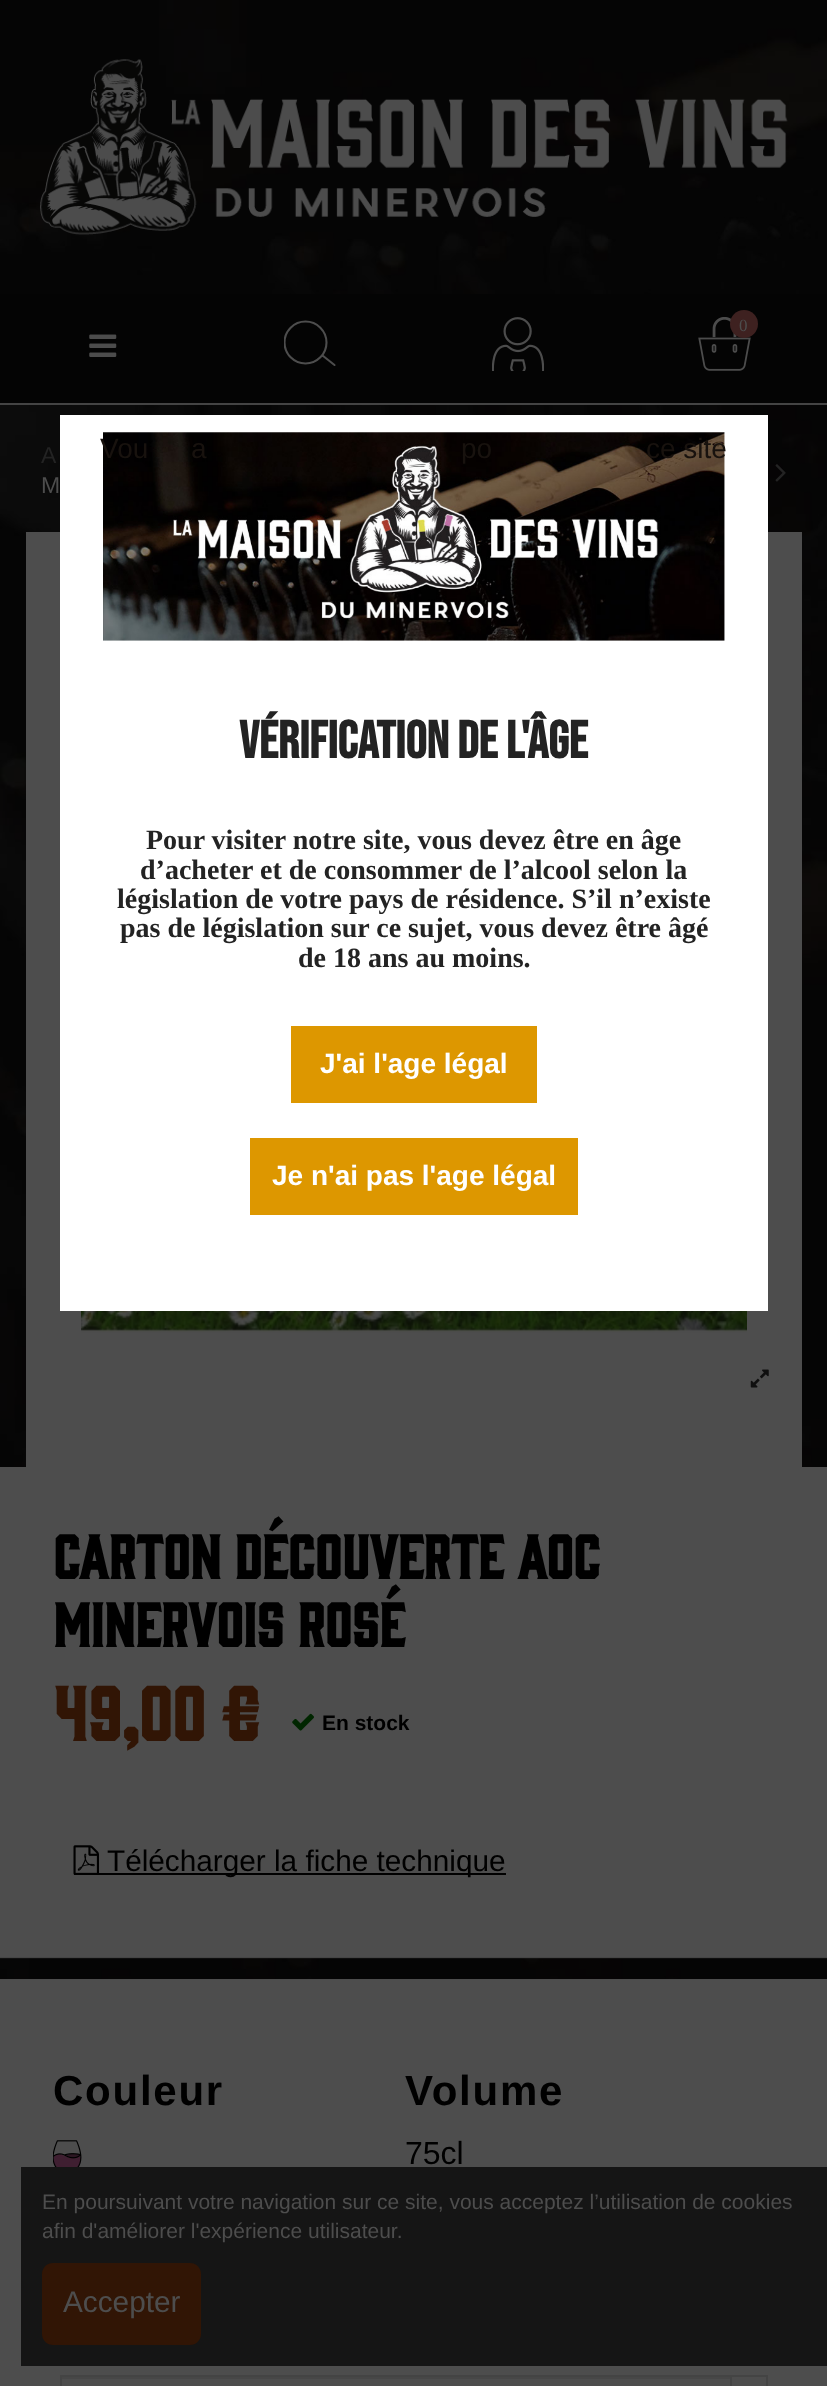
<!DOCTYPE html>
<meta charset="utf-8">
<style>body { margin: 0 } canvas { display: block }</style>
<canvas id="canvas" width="827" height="2386"></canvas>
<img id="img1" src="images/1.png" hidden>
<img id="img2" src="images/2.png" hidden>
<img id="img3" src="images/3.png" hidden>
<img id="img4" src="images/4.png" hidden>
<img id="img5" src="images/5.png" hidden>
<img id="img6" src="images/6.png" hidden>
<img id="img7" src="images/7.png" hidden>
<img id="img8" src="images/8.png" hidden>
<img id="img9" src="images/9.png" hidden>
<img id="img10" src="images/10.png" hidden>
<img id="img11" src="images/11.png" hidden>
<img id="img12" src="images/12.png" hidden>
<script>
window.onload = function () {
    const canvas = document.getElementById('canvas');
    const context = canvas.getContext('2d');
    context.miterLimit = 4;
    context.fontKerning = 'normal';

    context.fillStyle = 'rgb(255, 255, 255)';
    context.fillRect(0, 0, 827, 2386);
    context.drawImage(document.getElementById('img1'), 0, 0, 827, 1979);
    context.fillStyle = 'rgb(68, 68, 68)';
    context.fillRect(0, 403, 827, 2);
    context.drawImage(document.getElementById('img2'), 40, 59, 748, 176);
    context.fillStyle = 'rgb(4, 4, 4)';
    context.fillRect(0, 294, 827, 109);
    context.drawImage(document.getElementById('img3'), 89, 334, 28, 23);
    context.save();
    context.beginPath();
    context.rect(284, 320, 52, 48);
    context.clip();
    context.beginPath();
    context.arc(305.5, 342.5, 21, 0, 2 * Math.PI);
    context.strokeStyle = 'rgb(77, 77, 77)';
    context.lineWidth = 2.1;
    context.stroke();
    context.restore();
    context.beginPath();
    context.moveTo(322.5, 355.5);
    context.lineTo(334.5, 365);
    context.strokeStyle = 'rgb(77, 77, 77)';
    context.lineWidth = 2.1;
    context.lineCap = 'round';
    context.stroke();
    context.drawImage(document.getElementById('img4'), 492, 317, 52, 54);
    context.drawImage(document.getElementById('img5'), 698, 317, 53, 54);
    context.fillStyle = 'rgb(62, 33, 32)';
    context.beginPath();
    context.arc(744, 324, 14, 0, 2 * Math.PI);
    context.fill();
    context.drawImage(document.getElementById('img6'), 775, 464, 11, 18);
    context.fillStyle = 'rgb(77, 77, 77)';
    context.fillRect(26, 532, 776, 935);
    context.drawImage(document.getElementById('img7'), 81, 1311, 666, 22);
    context.drawImage(document.getElementById('img8'), 750, 1369, 19, 19);
    context.fillRect(0, 1467, 827, 491);
    context.fillStyle = 'rgba(48, 48, 48, 0.25)';
    context.fillRect(0, 1957, 827, 2);
    context.drawImage(document.getElementById('img9'), 292, 1713, 22, 18);
    context.fillStyle = 'rgb(0, 0, 0)';
    context.fillRect(74, 1873, 432, 2);
    context.drawImage(document.getElementById('img10'), 73, 1845, 26, 30);
    context.fillStyle = 'rgb(77, 77, 77)';
    context.fillRect(0, 1979, 827, 407);
    context.drawImage(document.getElementById('img11'), 53, 2140, 29, 27);
    context.fillStyle = 'rgb(71, 71, 71)';
    context.fillRect(61, 2377, 669, 2);
    context.strokeStyle = 'rgb(68, 68, 68)';
    context.lineWidth = 2;
    context.strokeRect(61, 2376, 670, 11);
    context.strokeRect(731, 2376, 36, 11);
    context.fillStyle = 'rgb(255, 255, 255)';
    context.fillRect(60, 415, 708, 896);
    context.drawImage(document.getElementById('img12'), 103, 432, 622, 209);
    context.fillStyle = 'rgb(221, 151, 0)';
    context.fillRect(291, 1026, 246, 77);
    context.fillRect(250, 1138, 328, 77);
    context.fillStyle = 'rgb(21, 21, 21)';
    context.fillRect(21, 2167, 806, 199);
    context.fillStyle = 'rgb(49, 21, 5)';
    context.beginPath();
    context.roundRect(42, 2263, 159, 82, 11);
    context.fill();
    context.font = '17px Liberation Serif';
    context.fillStyle = 'rgb(77, 77, 77)';
    context.fillText('0', 739, 331);
    context.font = '23px Liberation Sans';
    context.fillStyle = 'rgb(35, 35, 35)';
    context.fillText('A', 41, 463);
    context.fillStyle = 'rgb(77, 77, 77)';
    context.fillText('M', 41, 493);
    context.font = 'bold 56.75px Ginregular';
    context.fillStyle = 'rgb(0, 0, 0)';
    context.fillText('Carton Découverte AOC', 53, 1579);
    context.fillText('Minervois Rosé', 53, 1647);
    context.font = 'bold 70px Ginregular';
    context.fillStyle = 'rgb(49, 21, 5)';
    context.fillText('49,00 €', 53, 1741);
    context.font = 'bold 21px Liberation Sans';
    context.fillStyle = 'rgb(0, 0, 0)';
    context.fillText('En stock', 322, 1730);
    context.font = '29.75px Liberation Sans';
    context.fillText('Télécharger la fiche technique', 107, 1871);
    context.letterSpacing = '1.75px';
    context.font = 'bold 42px Liberation Sans';
    context.fillText('Couleur', 53, 2105);
    context.fillText('Volume', 405, 2105);
    context.letterSpacing = '0px';
    context.font = '32px Liberation Sans';
    context.fillText('75cl', 405, 2164);
    context.font = '28px Liberation Sans';
    context.fillStyle = 'rgb(24, 18, 14)';
    context.fillText('Vou', 100, 458);
    context.fillText('a', 191, 458);
    context.fillText('po', 461, 458);
    context.fillText('ce site', 646, 458);
    context.font = 'bold 52.5px Bebas Neue';
    context.fillStyle = 'rgb(35, 35, 35)';
    context.fillText('Vérification de l\'âge', 239, 758);
    context.font = 'bold 28px Liberation Serif';
    context.fillText('Pour visiter notre site, vous devez être en âge', 146, 849);
    context.fillText('d’acheter et de consommer de l’alcool selon la', 140, 879);
    context.fillText('législation de votre pays de résidence. S’il n’existe', 117, 908);
    context.fillText('pas de législation sur ce sujet, vous devez être âgé', 120, 937);
    context.fillText('de 18 ans au moins.', 298, 967);
    context.font = 'bold 28px Liberation Sans';
    context.fillStyle = 'rgb(255, 255, 255)';
    context.fillText('J\'ai l\'age légal', 320, 1073);
    context.fillText('Je n\'ai pas l\'age légal', 272, 1185);
    context.font = '21px Liberation Sans';
    context.fillStyle = 'rgb(77, 77, 77)';
    context.fillText('En poursuivant votre navigation sur ce site, vous acceptez l’utilisation de cookies', 42, 2209);
    context.fillText('afin d\'améliorer l\'expérience utilisateur.', 42, 2238);
    context.font = '29.75px Liberation Sans';
    context.fillText('Accepter', 63, 2312);
};
</script>
